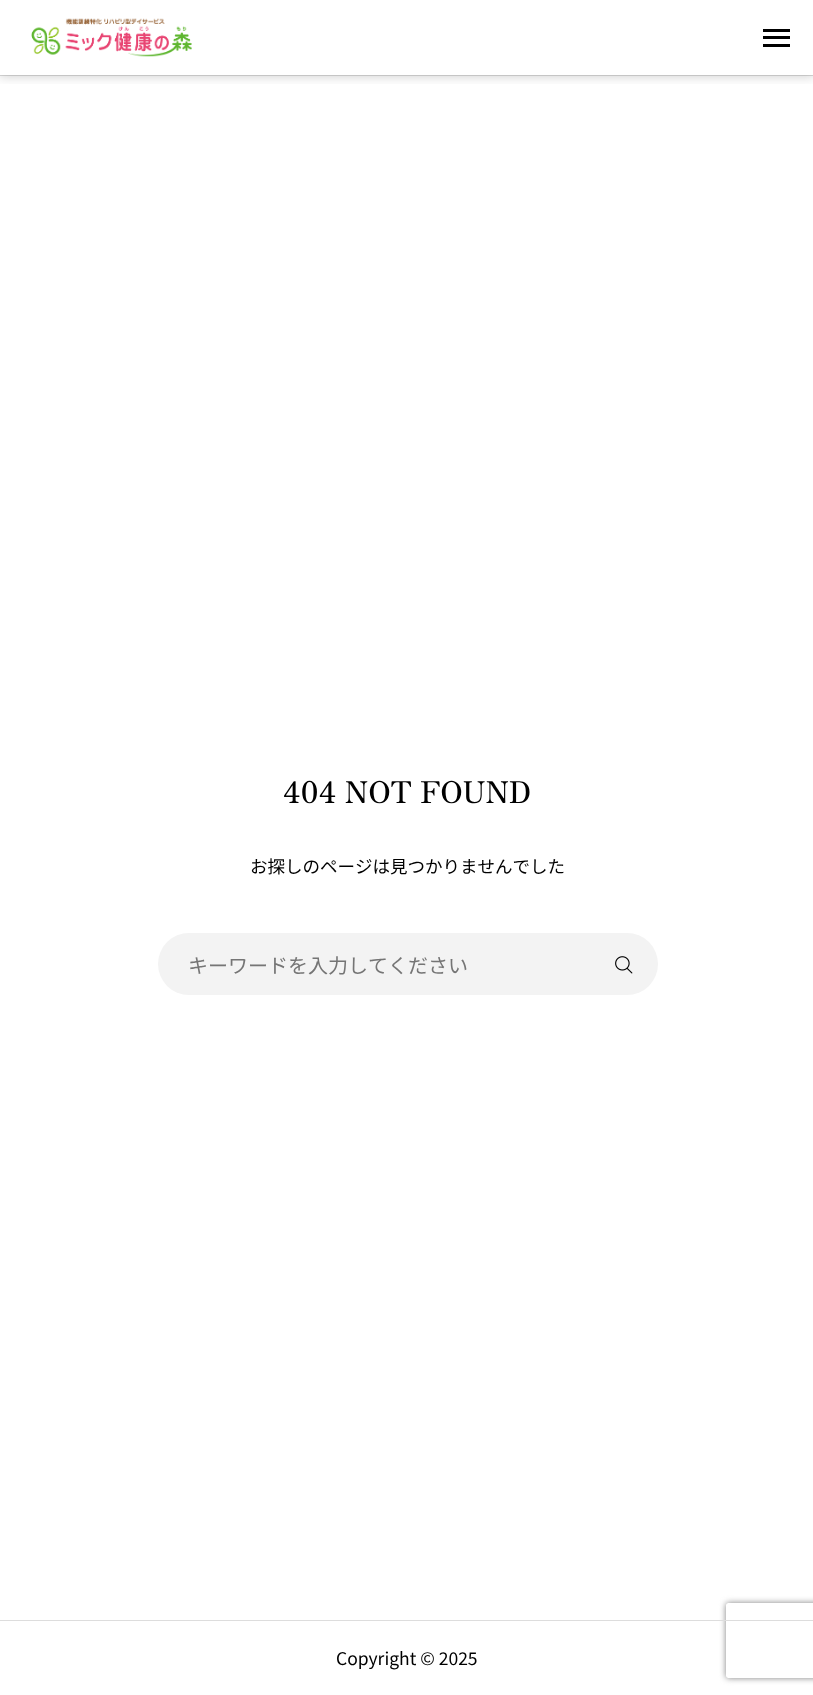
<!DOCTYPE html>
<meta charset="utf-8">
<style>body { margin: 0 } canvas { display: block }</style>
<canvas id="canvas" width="813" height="1695"></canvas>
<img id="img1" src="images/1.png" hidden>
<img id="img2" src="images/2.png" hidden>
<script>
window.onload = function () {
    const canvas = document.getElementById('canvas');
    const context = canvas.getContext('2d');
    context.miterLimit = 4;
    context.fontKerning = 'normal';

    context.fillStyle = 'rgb(255, 255, 255)';
    context.fillRect(0, 0, 813, 1695);
    context.fillStyle = 'rgb(221, 221, 221)';
    context.fillRect(0, 75, 813, 1);
    context.save();
    context.beginPath();
    context.rect(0, 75, 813, 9);
    context.clip();
    context.fillStyle = 'rgba(0, 0, 0, 0.2)';
    context.filter = 'blur(6px)';
    context.beginPath();
    context.rect(-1, -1, 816, 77);
    context.fill();
    context.filter = 'none';
    context.restore();
    context.drawImage(document.getElementById('img1'), 31, 18, 161, 39);
    context.fillStyle = 'rgb(0, 0, 0)';
    context.fillRect(763, 29, 27, 3);
    context.fillRect(763, 36, 27, 3);
    context.fillRect(763, 44, 27, 3);
    context.fillStyle = 'rgb(243, 243, 243)';
    context.beginPath();
    context.roundRect(158, 933, 500, 62, 31);
    context.fill();
    context.drawImage(document.getElementById('img2'), 615, 956, 18, 18);
    context.save();
    context.beginPath();
    context.moveTo(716, 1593);
    context.lineTo(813, 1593);
    context.lineTo(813, 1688);
    context.lineTo(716, 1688);
    context.closePath();
    context.moveTo(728.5, 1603);
    context.lineTo(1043.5, 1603);
    context.bezierCurveTo(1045, 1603, 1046, 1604, 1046, 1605.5);
    context.lineTo(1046, 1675.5);
    context.bezierCurveTo(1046, 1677, 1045, 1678, 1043.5, 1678);
    context.lineTo(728.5, 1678);
    context.bezierCurveTo(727, 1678, 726, 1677, 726, 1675.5);
    context.lineTo(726, 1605.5);
    context.bezierCurveTo(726, 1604, 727, 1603, 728.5, 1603);
    context.closePath();
    context.clip('evenodd');
    context.fillStyle = 'rgb(128, 128, 128)';
    context.filter = 'blur(3px)';
    context.beginPath();
    context.roundRect(726, 1603, 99, 75, 2.5);
    context.fill();
    context.filter = 'none';
    context.restore();
    context.fillStyle = 'rgb(221, 221, 221)';
    context.fillRect(0, 1620, 813, 1);
    context.font = '600 30px Zen Old Mincho';
    context.fillStyle = 'rgb(0, 0, 0)';
    context.fillText('404 NOT FOUND', 283, 803);
    context.font = '17.5px Noto Sans JP';
    context.fillText('お探しのページは見つかりませんでした', 250, 873);
    context.font = '20px Noto Sans JP';
    context.fillStyle = 'rgb(117, 117, 117)';
    context.fillText('キーワードを入力してください', 188, 973);
    context.font = '17.5px Noto Sans JP';
    context.fillStyle = 'rgb(0, 0, 0)';
    context.fillText('Copyright © 2025', 336, 1665);
};
</script>
